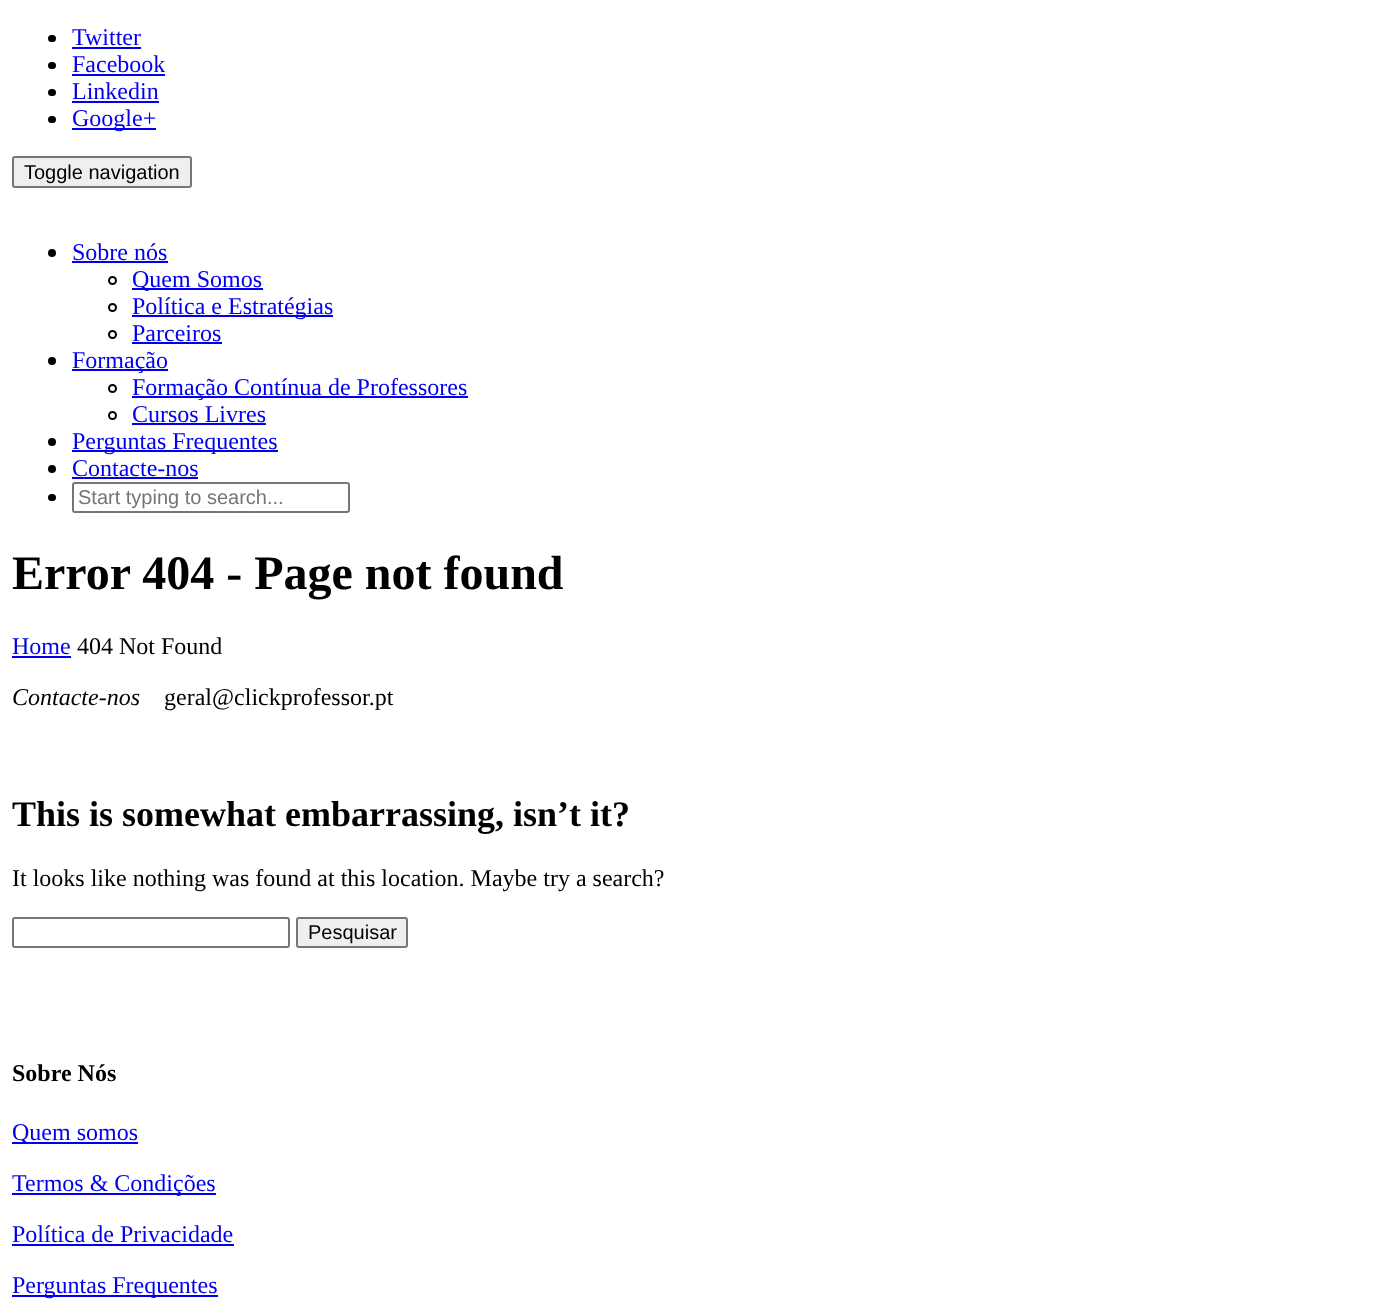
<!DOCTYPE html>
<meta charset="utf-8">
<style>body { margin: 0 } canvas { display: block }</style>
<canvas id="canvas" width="1392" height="1308"></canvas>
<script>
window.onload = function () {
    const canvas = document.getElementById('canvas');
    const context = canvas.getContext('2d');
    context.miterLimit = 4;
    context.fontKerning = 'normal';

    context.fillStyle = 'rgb(255, 255, 255)';
    context.fillRect(0, 0, 1392, 1308);
    context.fillStyle = 'rgb(0, 0, 0)';
    context.beginPath();
    context.roundRect(48, 35, 8, 7, 3.5);
    context.fill();
    context.fillStyle = 'rgb(0, 0, 238)';
    context.fillRect(72, 47, 69, 2);
    context.fillStyle = 'rgb(0, 0, 0)';
    context.beginPath();
    context.roundRect(48, 62, 8, 7, 3.5);
    context.fill();
    context.fillStyle = 'rgb(0, 0, 238)';
    context.fillRect(72, 74, 93, 2);
    context.fillStyle = 'rgb(0, 0, 0)';
    context.beginPath();
    context.roundRect(48, 89, 8, 7, 3.5);
    context.fill();
    context.fillStyle = 'rgb(0, 0, 238)';
    context.fillRect(72, 101, 87, 2);
    context.fillStyle = 'rgb(0, 0, 0)';
    context.beginPath();
    context.roundRect(48, 116, 8, 7, 3.5);
    context.fill();
    context.fillStyle = 'rgb(0, 0, 238)';
    context.fillRect(72, 128, 84, 2);
    context.fillStyle = 'rgb(239, 239, 239)';
    context.beginPath();
    context.roundRect(13, 157, 178, 30, 2);
    context.fill();
    context.strokeStyle = 'rgb(118, 118, 118)';
    context.lineWidth = 2;
    context.stroke();
    context.fillStyle = 'rgb(0, 0, 0)';
    context.beginPath();
    context.arc(52, 253, 4, 0, 2 * Math.PI);
    context.fill();
    context.fillStyle = 'rgb(0, 0, 238)';
    context.fillRect(72, 261, 96, 2);
    context.beginPath();
    context.arc(112.5, 280.5, 3.5, 0, 2 * Math.PI);
    context.strokeStyle = 'rgb(0, 0, 0)';
    context.stroke();
    context.fillRect(132, 288, 131, 2);
    context.beginPath();
    context.arc(112.5, 307.5, 3.5, 0, 2 * Math.PI);
    context.stroke();
    context.fillRect(132, 315, 201, 2);
    context.beginPath();
    context.arc(112.5, 334.5, 3.5, 0, 2 * Math.PI);
    context.stroke();
    context.fillRect(132, 342, 90, 2);
    context.fillStyle = 'rgb(0, 0, 0)';
    context.beginPath();
    context.arc(52, 361, 4, 0, 2 * Math.PI);
    context.fill();
    context.fillStyle = 'rgb(0, 0, 238)';
    context.fillRect(72, 369, 96, 2);
    context.beginPath();
    context.arc(112.5, 388.5, 3.5, 0, 2 * Math.PI);
    context.stroke();
    context.fillRect(132, 396, 336, 2);
    context.beginPath();
    context.arc(112.5, 415.5, 3.5, 0, 2 * Math.PI);
    context.stroke();
    context.fillRect(132, 423, 134, 2);
    context.fillStyle = 'rgb(0, 0, 0)';
    context.beginPath();
    context.arc(52, 442, 4, 0, 2 * Math.PI);
    context.fill();
    context.fillStyle = 'rgb(0, 0, 238)';
    context.fillRect(72, 450, 206, 2);
    context.fillStyle = 'rgb(0, 0, 0)';
    context.beginPath();
    context.arc(52, 469, 4, 0, 2 * Math.PI);
    context.fill();
    context.fillStyle = 'rgb(0, 0, 238)';
    context.fillRect(72, 477, 126, 2);
    context.fillStyle = 'rgb(0, 0, 0)';
    context.beginPath();
    context.roundRect(48, 494, 8, 7, 3.5);
    context.fill();
    context.beginPath();
    context.roundRect(73, 483, 276, 29, 2);
    context.strokeStyle = 'rgb(118, 118, 118)';
    context.stroke();
    context.fillStyle = 'rgb(0, 0, 238)';
    context.fillRect(12, 656, 59, 2);
    context.beginPath();
    context.roundRect(13, 918, 276, 29, 2);
    context.stroke();
    context.fillStyle = 'rgb(239, 239, 239)';
    context.beginPath();
    context.roundRect(297, 918, 110, 29, 2);
    context.fill();
    context.stroke();
    context.fillStyle = 'rgb(0, 0, 238)';
    context.fillRect(12, 1142, 126, 2);
    context.fillRect(12, 1193, 204, 2);
    context.fillRect(12, 1244, 222, 2);
    context.fillRect(12, 1295, 206, 2);
    context.font = '24px Liberation Serif';
    context.fillText('Twitter', 72, 45);
    context.fillText('Facebook', 72, 72);
    context.fillText('Linkedin', 72, 99);
    context.fillText('Google+', 72, 126);
    context.font = '20px Liberation Sans';
    context.fillStyle = 'rgb(0, 0, 0)';
    context.fillText('Toggle navigation', 24, 179);
    context.font = '24px Liberation Serif';
    context.fillStyle = 'rgb(0, 0, 238)';
    context.fillText('Sobre nós', 72, 260);
    context.fillText('Quem Somos', 132, 287);
    context.fillText('Política e Estratégias', 132, 314);
    context.fillText('Parceiros', 132, 341);
    context.fillText('Formação', 72, 368);
    context.fillText('Formação Contínua de Professores', 132, 395);
    context.fillText('Cursos Livres', 132, 422);
    context.fillText('Perguntas Frequentes', 72, 449);
    context.fillText('Contacte-nos', 72, 476);
    context.font = '20px Liberation Sans';
    context.fillStyle = 'rgb(117, 117, 117)';
    context.fillText('Start typing to search...', 78, 504);
    context.font = 'bold 48px Liberation Serif';
    context.fillStyle = 'rgb(0, 0, 0)';
    context.fillText('Error 404 - Page not found', 12, 589);
    context.font = '24px Liberation Serif';
    context.fillStyle = 'rgb(0, 0, 238)';
    context.fillText('Home', 12, 654);
    context.fillStyle = 'rgb(0, 0, 0)';
    context.fillText('404 Not Found', 77, 654);
    context.font = 'italic 24px Liberation Serif';
    context.fillText('Contacte-nos', 12, 705);
    context.font = '24px Liberation Serif';
    context.fillText('geral@clickprofessor.pt', 164, 705);
    context.font = 'bold 36px Liberation Serif';
    context.fillText('This is somewhat embarrassing, isn’t it?', 12, 826);
    context.font = '24px Liberation Serif';
    context.fillText('It looks like nothing was found at this location. Maybe try a search?', 12, 886);
    context.font = '20px Liberation Sans';
    context.fillText('Pesquisar', 308, 939);
    context.font = 'bold 24px Liberation Serif';
    context.fillText('Sobre Nós', 12, 1081);
    context.font = '24px Liberation Serif';
    context.fillStyle = 'rgb(0, 0, 238)';
    context.fillText('Quem somos', 12, 1140);
    context.fillText('Termos & Condições', 12, 1191);
    context.fillText('Política de Privacidade', 12, 1242);
    context.fillText('Perguntas Frequentes', 12, 1293);
};
</script>
